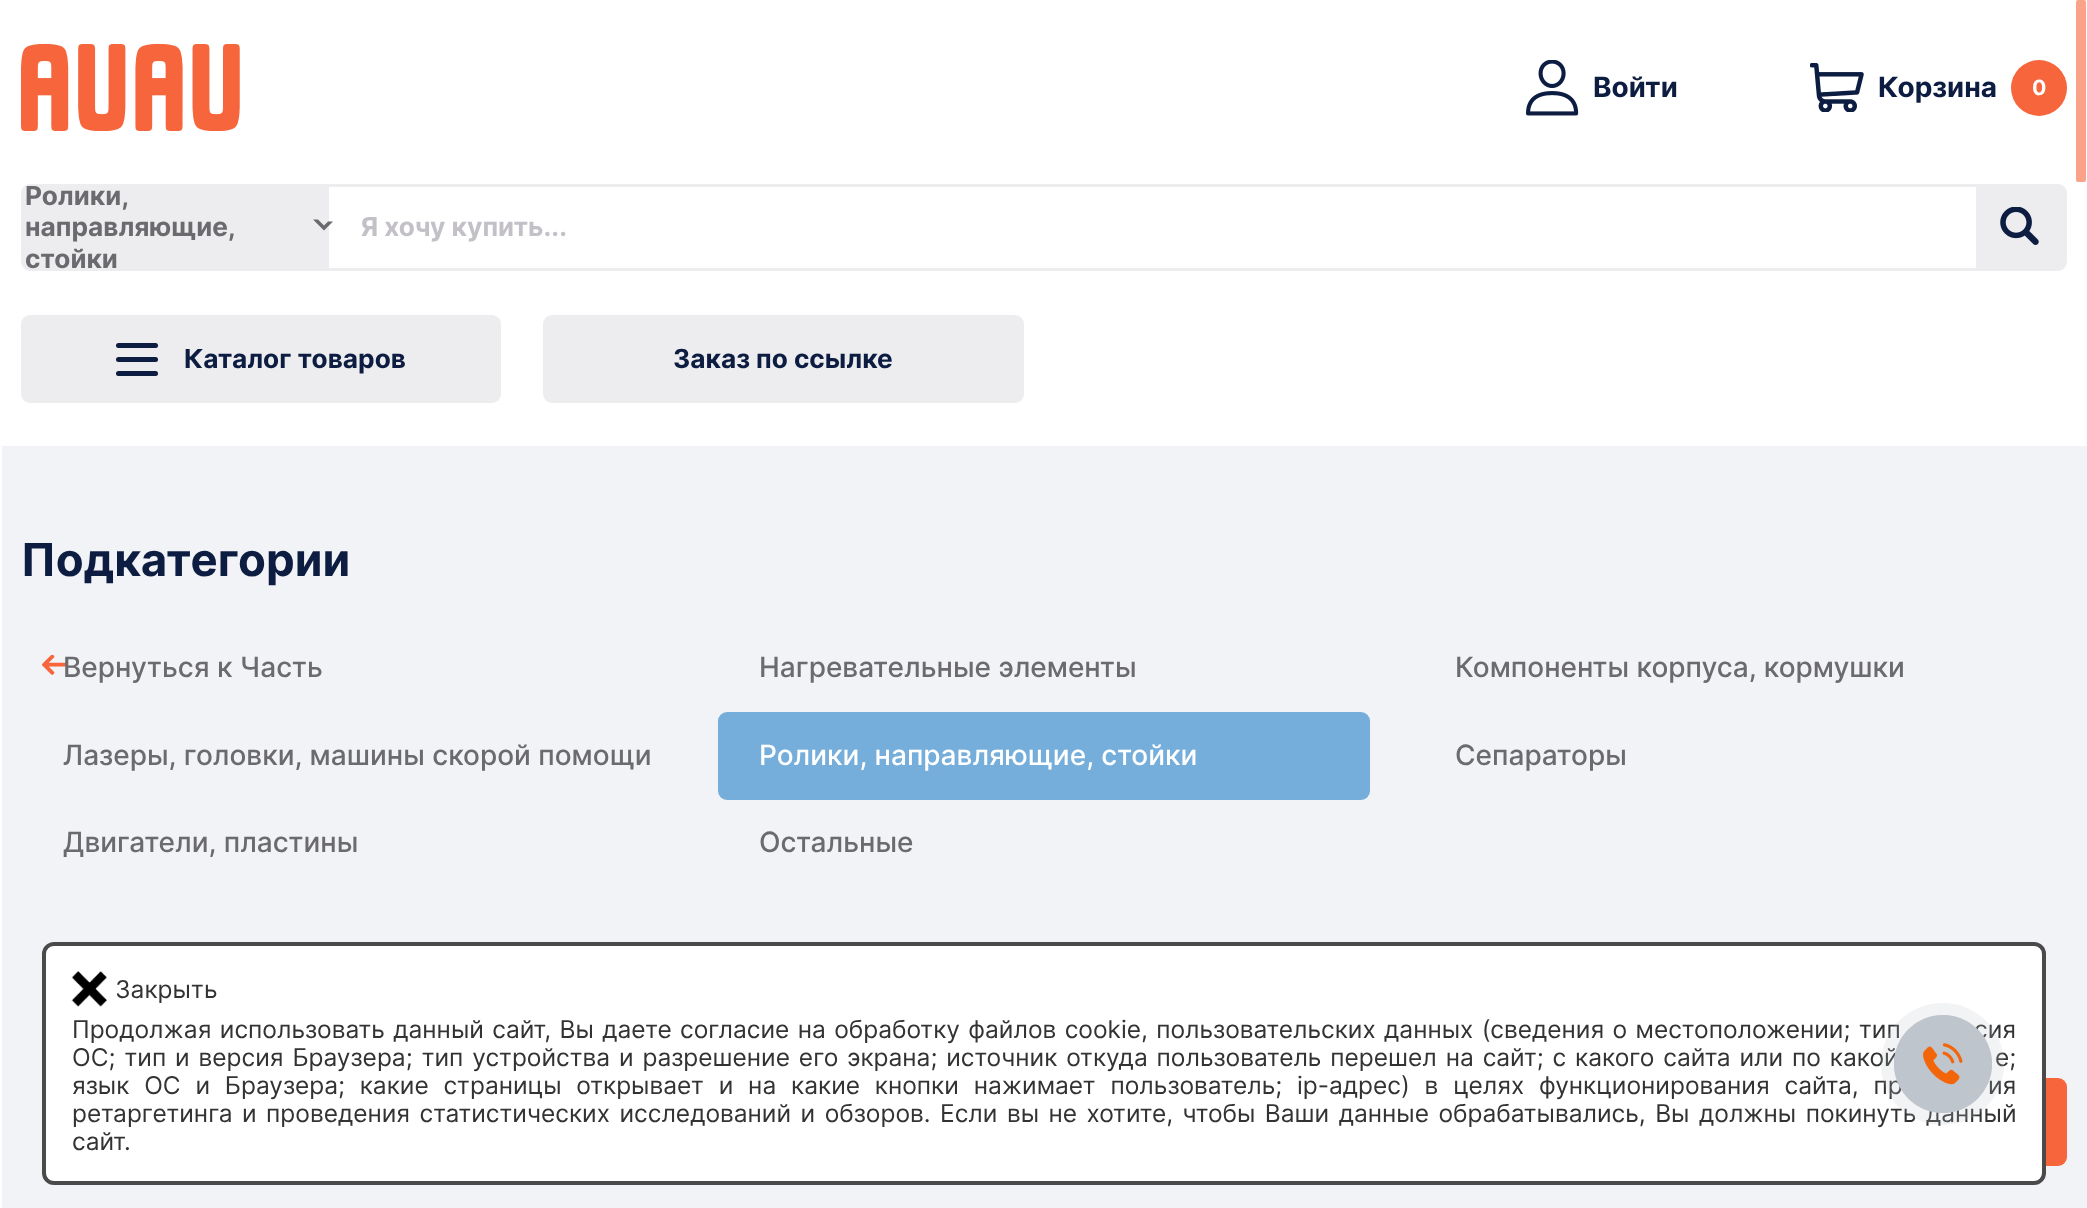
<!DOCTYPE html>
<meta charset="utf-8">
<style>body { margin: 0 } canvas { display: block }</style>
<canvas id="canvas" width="2087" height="1208"></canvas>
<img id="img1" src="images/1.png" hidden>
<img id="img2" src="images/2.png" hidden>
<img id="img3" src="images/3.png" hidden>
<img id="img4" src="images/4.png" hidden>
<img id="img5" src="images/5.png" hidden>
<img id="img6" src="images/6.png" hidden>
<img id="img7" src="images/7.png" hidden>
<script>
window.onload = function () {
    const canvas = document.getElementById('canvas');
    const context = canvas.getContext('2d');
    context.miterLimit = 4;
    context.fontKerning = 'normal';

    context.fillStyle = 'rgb(242, 243, 247)';
    context.fillRect(0, 0, 2087, 1208);
    context.fillStyle = 'rgb(255, 255, 255)';
    context.fillRect(2, 0, 2085, 446);
    context.drawImage(document.getElementById('img1'), 21, 44, 219, 87);
    context.drawImage(document.getElementById('img2'), 1526, 60, 53, 56);
    context.drawImage(document.getElementById('img3'), 1810, 63, 54, 49);
    context.fillStyle = 'rgb(246, 101, 59)';
    context.beginPath();
    context.arc(2039, 88, 28, 0, 2 * Math.PI);
    context.fill();
    context.beginPath();
    context.roundRect(23, 186, 2042, 83, 7);
    context.strokeStyle = 'rgb(237, 237, 239)';
    context.lineWidth = 4;
    context.stroke();
    context.fillStyle = 'rgb(237, 237, 239)';
    context.fillRect(25, 188, 304, 79);
    context.fillStyle = 'rgb(255, 255, 255)';
    context.fillRect(329, 187, 1647, 81);
    context.fillStyle = 'rgb(107, 106, 110)';
    context.beginPath();
    context.moveTo(333, 221.5);
    context.lineTo(324, 230.5);
    context.lineTo(324, 225.5);
    context.lineTo(328, 221.5);
    context.closePath();
    context.moveTo(324, 230.5);
    context.lineTo(313, 219.5);
    context.lineTo(318, 219.5);
    context.lineTo(324, 225.5);
    context.closePath();
    context.fill();
    context.fillStyle = 'rgb(237, 237, 239)';
    context.fillRect(1976, 188, 87, 79);
    context.drawImage(document.getElementById('img4'), 2000, 207, 39, 38);
    context.beginPath();
    context.roundRect(21, 315, 480, 88, 9);
    context.fill();
    context.fillStyle = 'rgb(13, 28, 65)';
    context.beginPath();
    context.roundRect(116, 357, 42, 5, 2.5);
    context.fill();
    context.beginPath();
    context.roundRect(116, 343, 42, 5, 2.5);
    context.fill();
    context.beginPath();
    context.roundRect(116, 371, 42, 5, 2.5);
    context.fill();
    context.fillStyle = 'rgb(237, 237, 239)';
    context.beginPath();
    context.roundRect(543, 315, 481, 88, 9);
    context.fill();
    context.fillStyle = 'rgb(255, 255, 255)';
    context.fillRect(0, 0, 2, 1208);
    context.drawImage(document.getElementById('img5'), 42, 655, 25, 20);
    context.fillStyle = 'rgb(117, 174, 218)';
    context.beginPath();
    context.roundRect(718, 712, 652, 88, 9);
    context.fill();
    context.fillStyle = 'rgb(246, 101, 59)';
    context.beginPath();
    context.roundRect(1867, 1078, 200, 88, 9);
    context.fill();
    context.fillStyle = 'rgb(255, 255, 255)';
    context.beginPath();
    context.roundRect(44, 944, 2000, 239, 10);
    context.fill();
    context.strokeStyle = 'rgb(74, 74, 74)';
    context.stroke();
    context.drawImage(document.getElementById('img6'), 71, 971, 36, 36);
    context.fillStyle = 'rgb(250, 163, 137)';
    context.beginPath();
    context.roundRect(2076, 0, 10, 182, 2);
    context.fill();
    context.font = 'bold 28px Inter';
    context.fillStyle = 'rgb(13, 28, 65)';
    context.fillText('Войти', 1593, 97);
    context.fillText('Корзина', 1878, 97);
    context.font = 'bold 21px Inter';
    context.fillStyle = 'rgb(255, 255, 255)';
    context.fillText('0', 2032, 95);
    context.font = 'bold 26.25px Inter';
    context.fillStyle = 'rgb(107, 106, 110)';
    context.fillText('Ролики,', 25, 205);
    context.fillText('направляющие,', 25, 236);
    context.fillText('стойки', 25, 268);
    context.fillStyle = 'rgb(195, 193, 199)';
    context.fillText('Я хочу купить...', 361, 236);
    context.fillStyle = 'rgb(13, 28, 65)';
    context.fillText('Каталог товаров', 184, 368);
    context.fillText('Заказ по ссылке', 673, 368);
    context.font = 'bold 45.5px Inter';
    context.fillText('Подкатегории', 21, 576);
    context.font = '500 28px Inter';
    context.fillStyle = 'rgb(107, 106, 110)';
    context.fillText('Вернуться к Часть', 63, 677);
    context.fillText('Нагревательные элементы', 759, 677);
    context.fillText('Компоненты корпуса, кормушки', 1455, 677);
    context.fillText('Лазеры, головки, машины скорой помощи', 63, 765);
    context.fillStyle = 'rgb(255, 255, 255)';
    context.fillText('Ролики, направляющие, стойки', 759, 765);
    context.fillStyle = 'rgb(107, 106, 110)';
    context.fillText('Сепараторы', 1455, 765);
    context.fillText('Двигатели, пластины', 63, 852);
    context.fillText('Остальные', 759, 852);
    context.font = '24.5px Inter';
    context.fillStyle = 'rgb(51, 51, 51)';
    context.fillText('Закрыть', 115, 998);
    context.wordSpacing = '1.5px';
    context.fillText('Продолжая использовать данный сайт, Вы даете согласие на обработку файлов cookie, пользовательских данных (сведения о местоположении; тип', 72, 1038);
    context.fillText('сия', 1974, 1038);
    context.wordSpacing = '2px';
    context.fillText('ОС; тип и версия Браузера; тип устройства и разрешение его экрана; источник откуда пользователь перешел на сайт; с какого сайта или по какой', 72, 1066);
    context.fillText('е;', 1995, 1066);
    context.wordSpacing = '7.9px';
    context.fillText('язык ОС и Браузера; какие страницы открывает и на какие кнопки нажимает пользователь; ip-адрес) в целях функционирования сайта, пр', 72, 1094);
    context.fillText('ия', 1988, 1094);
    context.wordSpacing = '2.6px';
    context.fillText('ретаргетинга и проведения статистических исследований и обзоров. Если вы не хотите, чтобы Ваши данные обрабатывались, Вы должны покинуть данный', 72, 1122);
    context.wordSpacing = '0px';
    context.fillText('сайт.', 72, 1150);
    context.fillStyle = 'rgba(191, 197, 205, 0.2)';
    context.beginPath();
    context.roundRect(1881, 1003, 123, 122, 61);
    context.fill();
    context.beginPath();
    context.arc(1943, 1064, 48.5, 0, 2 * Math.PI);
    context.strokeStyle = 'rgb(191, 197, 205)';
    context.lineWidth = 1;
    context.stroke();
    context.fillStyle = 'rgb(191, 197, 205)';
    context.beginPath();
    context.arc(1943, 1064, 49, 0, 2 * Math.PI);
    context.fill();
    context.drawImage(document.getElementById('img7'), 1923, 1043, 40, 42);
};
</script>
